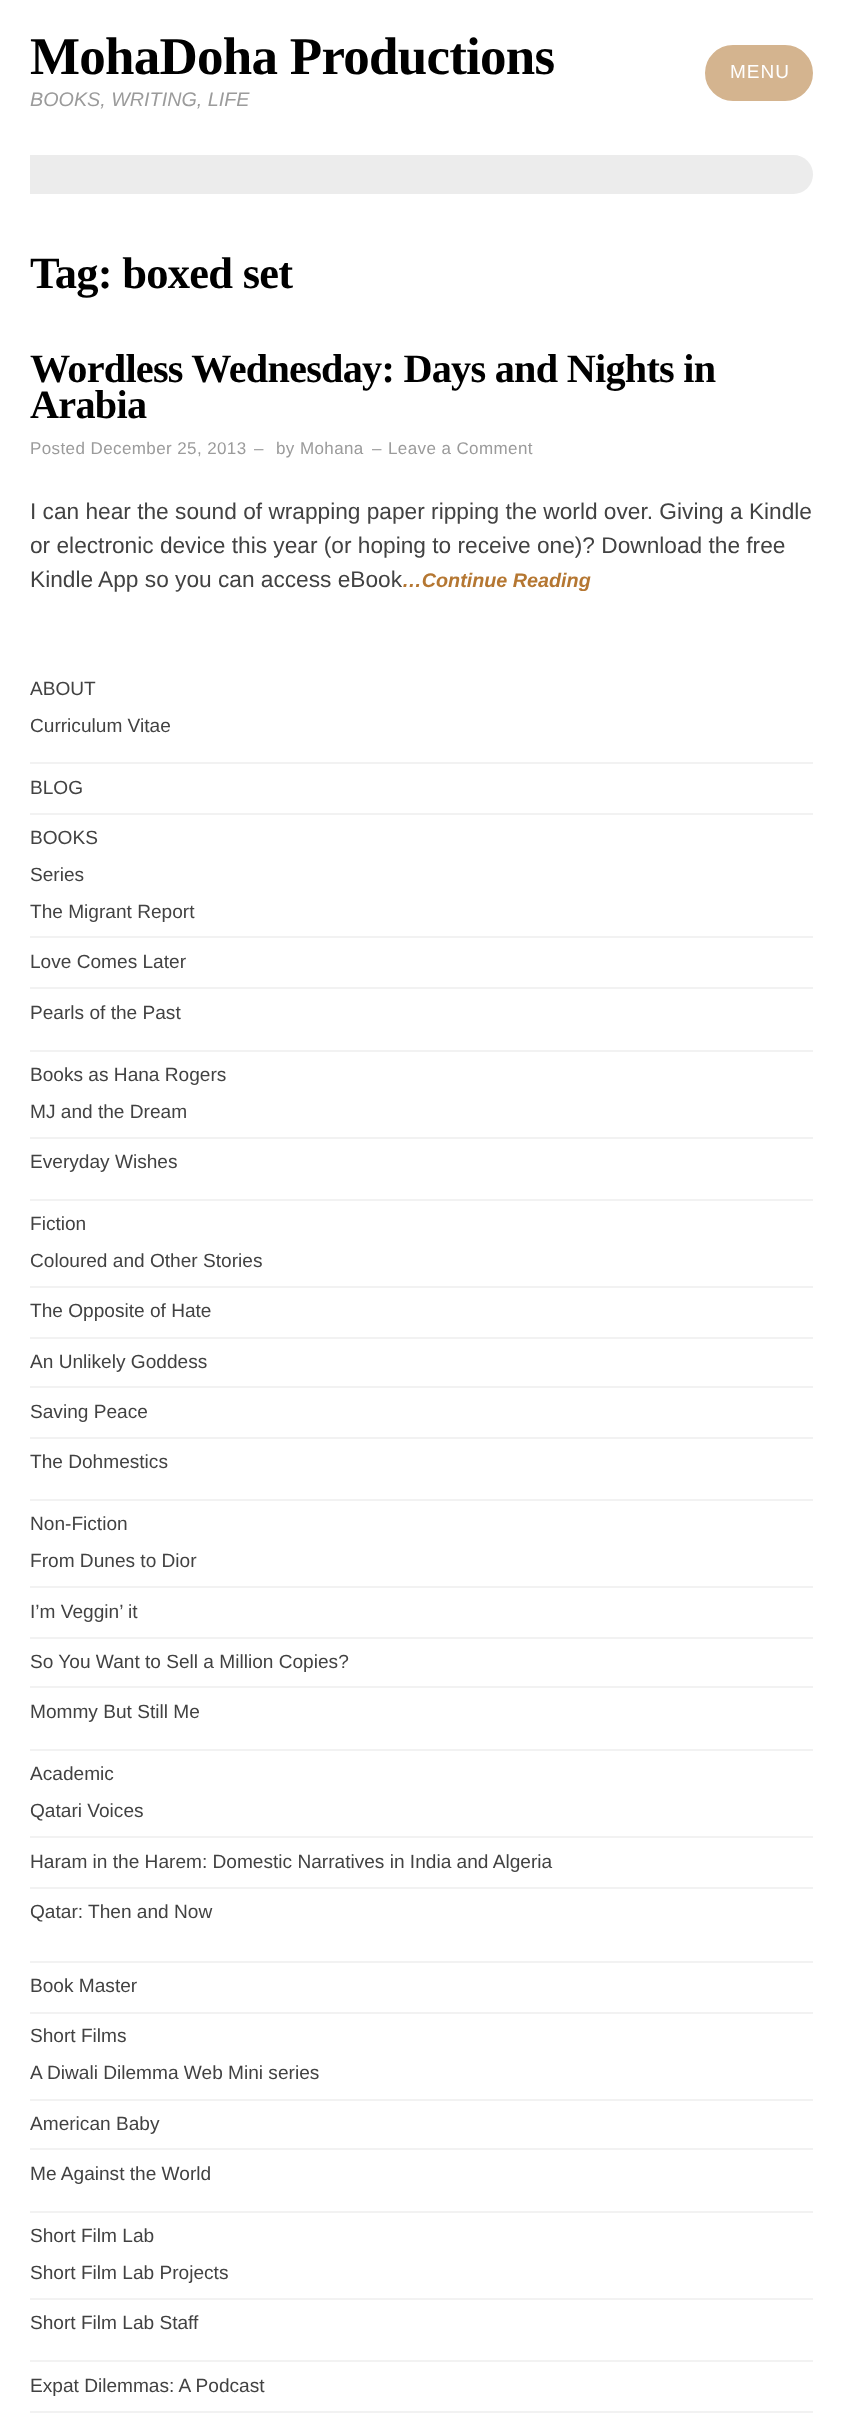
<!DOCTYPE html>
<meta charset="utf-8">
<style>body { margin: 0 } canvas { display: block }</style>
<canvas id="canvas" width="843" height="2430"></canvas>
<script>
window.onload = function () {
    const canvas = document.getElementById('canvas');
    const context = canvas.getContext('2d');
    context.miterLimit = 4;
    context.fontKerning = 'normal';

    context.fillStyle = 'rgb(255, 255, 255)';
    context.fillRect(0, 0, 843, 2430);
    context.fillStyle = 'rgb(212, 180, 143)';
    context.beginPath();
    context.roundRect(706, 46, 106, 54, 27);
    context.fill();
    context.strokeStyle = 'rgb(212, 180, 143)';
    context.lineWidth = 2;
    context.stroke();
    context.fillStyle = 'rgb(236, 236, 236)';
    context.beginPath();
    context.roundRect(30, 155, 783, 39, [0, 19.5, 19.5, 0]);
    context.fill();
    context.fillStyle = 'rgb(242, 242, 242)';
    context.fillRect(30, 762, 783, 2);
    context.fillRect(30, 813, 783, 2);
    context.fillRect(30, 1961, 783, 2);
    context.fillRect(30, 1050, 783, 2);
    context.fillRect(30, 936, 783, 2);
    context.fillRect(30, 987, 783, 2);
    context.fillRect(30, 1199, 783, 2);
    context.fillRect(30, 1137, 783, 2);
    context.fillRect(30, 1499, 783, 2);
    context.fillRect(30, 1286, 783, 2);
    context.fillRect(30, 1337, 783, 2);
    context.fillRect(30, 1386, 783, 2);
    context.fillRect(30, 1437, 783, 2);
    context.fillRect(30, 1749, 783, 2);
    context.fillRect(30, 1586, 783, 2);
    context.fillRect(30, 1637, 783, 2);
    context.fillRect(30, 1686, 783, 2);
    context.fillRect(30, 1836, 783, 2);
    context.fillRect(30, 1887, 783, 2);
    context.fillRect(30, 2012, 783, 2);
    context.fillRect(30, 2211, 783, 2);
    context.fillRect(30, 2099, 783, 2);
    context.fillRect(30, 2148, 783, 2);
    context.fillRect(30, 2360, 783, 2);
    context.fillRect(30, 2298, 783, 2);
    context.fillRect(30, 2411, 783, 2);
    context.letterSpacing = '-0.75px';
    context.font = 'bold 53px Liberation Serif';
    context.fillStyle = 'rgb(0, 0, 0)';
    context.fillText('MohaDoha Productions', 30, 74);
    context.letterSpacing = '0px';
    context.font = 'italic 19.75px Liberation Sans';
    context.fillStyle = 'rgb(155, 155, 155)';
    context.fillText('BOOKS, WRITING, LIFE', 30, 106);
    context.letterSpacing = '1px';
    context.font = '19px Liberation Sans';
    context.fillStyle = 'rgb(255, 255, 255)';
    context.fillText('MENU', 730, 78);
    context.letterSpacing = '-0.75px';
    context.font = 'bold 44.5px Liberation Serif';
    context.fillStyle = 'rgb(0, 0, 0)';
    context.fillText('Tag: boxed set', 30, 288);
    context.font = 'bold 40.25px Liberation Serif';
    context.fillText('Wordless Wednesday: Days and Nights in', 30, 382);
    context.fillText('Arabia', 30, 418);
    context.letterSpacing = '0.4px';
    context.font = '17px Liberation Sans';
    context.fillStyle = 'rgb(155, 155, 155)';
    context.fillText('Posted December 25, 2013', 30, 454);
    context.fillText('–', 254, 454);
    context.fillText('by Mohana', 276, 454);
    context.fillText('–', 372, 454);
    context.fillText('Leave a Comment', 388, 454);
    context.letterSpacing = '0px';
    context.font = '22.7px Liberation Sans';
    context.fillStyle = 'rgb(66, 66, 66)';
    context.fillText('I can hear the sound of wrapping paper ripping the world over. Giving a Kindle', 30, 519);
    context.fillText('or electronic device this year (or hoping to receive one)? Download the free', 30, 553);
    context.fillText('Kindle App so you can access eBook', 30, 587);
    context.font = 'italic bold 19.75px Liberation Sans';
    context.fillStyle = 'rgb(181, 119, 50)';
    context.fillText('…Continue Reading', 402, 587);
    context.font = '19.1px Liberation Sans';
    context.fillStyle = 'rgb(66, 66, 66)';
    context.fillText('ABOUT', 30, 695);
    context.fillText('Curriculum Vitae', 30, 732);
    context.fillText('BLOG', 30, 794);
    context.fillText('BOOKS', 30, 844);
    context.fillText('Series', 30, 881);
    context.fillText('The Migrant Report', 30, 918);
    context.fillText('Love Comes Later', 30, 968);
    context.fillText('Pearls of the Past', 30, 1019);
    context.fillText('Books as Hana Rogers', 30, 1081);
    context.fillText('MJ and the Dream', 30, 1118);
    context.fillText('Everyday Wishes', 30, 1168);
    context.fillText('Fiction', 30, 1230);
    context.fillText('Coloured and Other Stories', 30, 1267);
    context.fillText('The Opposite of Hate', 30, 1317);
    context.fillText('An Unlikely Goddess', 30, 1368);
    context.fillText('Saving Peace', 30, 1418);
    context.fillText('The Dohmestics', 30, 1468);
    context.fillText('Non-Fiction', 30, 1530);
    context.fillText('From Dunes to Dior', 30, 1567);
    context.fillText('I’m Veggin’ it', 30, 1618);
    context.fillText('So You Want to Sell a Million Copies?', 30, 1668);
    context.fillText('Mommy But Still Me', 30, 1718);
    context.fillText('Academic', 30, 1780);
    context.fillText('Qatari Voices', 30, 1817);
    context.fillText('Haram in the Harem: Domestic Narratives in India and Algeria', 30, 1868);
    context.fillText('Qatar: Then and Now', 30, 1918);
    context.fillText('Book Master', 30, 1992);
    context.fillText('Short Films', 30, 2042);
    context.fillText('A Diwali Dilemma Web Mini series', 30, 2079);
    context.fillText('American Baby', 30, 2130);
    context.fillText('Me Against the World', 30, 2180);
    context.fillText('Short Film Lab', 30, 2242);
    context.fillText('Short Film Lab Projects', 30, 2279);
    context.fillText('Short Film Lab Staff', 30, 2329);
    context.fillText('Expat Dilemmas: A Podcast', 30, 2392);
};
</script>
